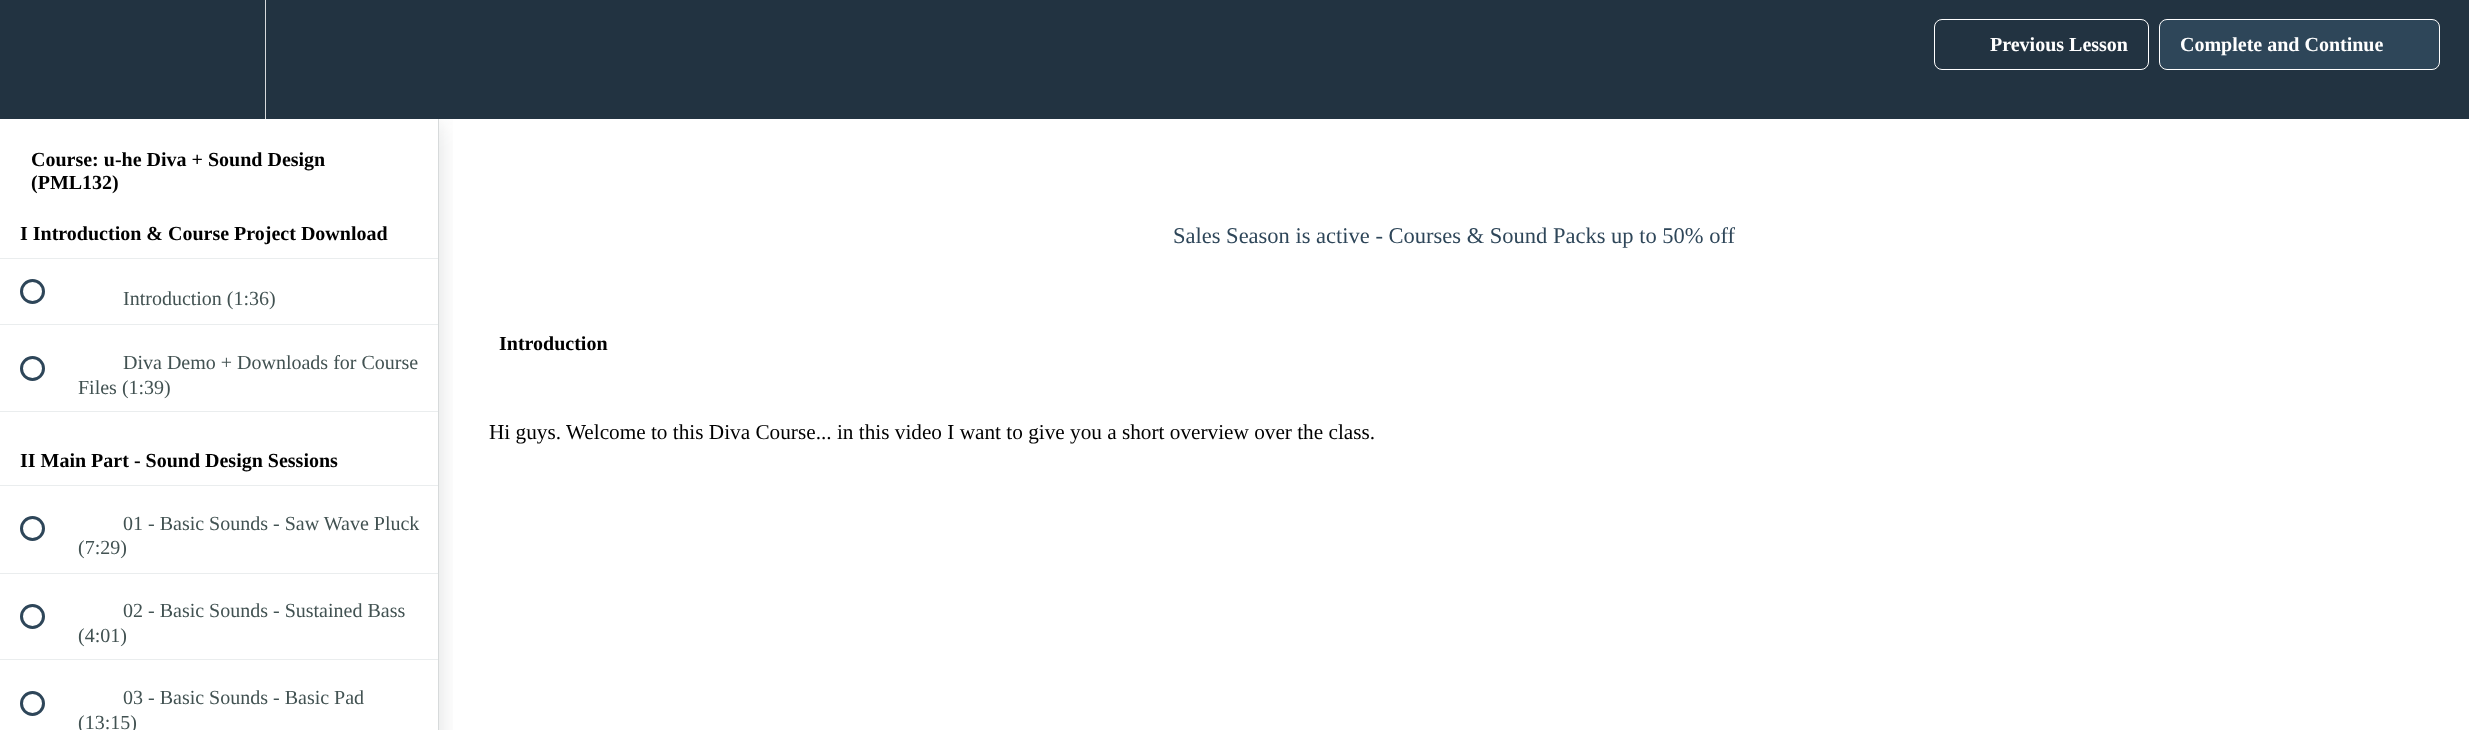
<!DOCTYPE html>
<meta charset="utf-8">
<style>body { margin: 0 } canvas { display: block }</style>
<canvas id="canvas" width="2469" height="730"></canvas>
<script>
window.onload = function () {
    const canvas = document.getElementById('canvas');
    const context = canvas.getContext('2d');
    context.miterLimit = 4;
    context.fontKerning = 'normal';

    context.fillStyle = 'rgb(255, 255, 255)';
    context.fillRect(0, 0, 2469, 730);
    context.save();
    context.beginPath();
    context.rect(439, 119, 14, 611);
    context.clip();
    context.fillStyle = 'rgba(32, 39, 45, 0.15)';
    context.filter = 'blur(12.5px)';
    context.beginPath();
    context.rect(0, 125, 439, 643);
    context.fill();
    context.filter = 'none';
    context.restore();
    context.fillStyle = 'rgb(215, 218, 219)';
    context.fillRect(438, 118, 1, 612);
    context.fillStyle = 'rgb(34, 51, 65)';
    context.fillRect(0, 0, 2469, 119);
    context.fillStyle = 'rgb(215, 218, 219)';
    context.fillRect(265, 0, 1, 119);
    context.beginPath();
    context.roundRect(1934.5, 19.5, 214, 50, 7.5);
    context.strokeStyle = 'rgb(255, 255, 255)';
    context.stroke();
    context.fillStyle = 'rgb(46, 70, 89)';
    context.beginPath();
    context.roundRect(2159.5, 19.5, 280, 50, 7.5);
    context.fill();
    context.stroke();
    context.fillStyle = 'rgb(234, 237, 238)';
    context.fillRect(0, 258, 438, 1);
    context.fillRect(0, 324, 438, 1);
    context.beginPath();
    context.arc(32.5, 291.5, 11, 0, 2 * Math.PI);
    context.strokeStyle = 'rgb(46, 70, 89)';
    context.lineWidth = 3;
    context.stroke();
    context.fillRect(0, 411, 438, 1);
    context.beginPath();
    context.arc(32.5, 368.5, 11, 0, 2 * Math.PI);
    context.stroke();
    context.fillRect(0, 485, 438, 1);
    context.fillRect(0, 573, 438, 1);
    context.beginPath();
    context.arc(32.5, 528.5, 11, 0, 2 * Math.PI);
    context.stroke();
    context.fillRect(0, 659, 438, 1);
    context.beginPath();
    context.arc(32.5, 616.5, 11, 0, 2 * Math.PI);
    context.stroke();
    context.beginPath();
    context.arc(32.5, 703.5, 11, 0, 2 * Math.PI);
    context.stroke();
    context.font = 'bold 20px Liberation Serif';
    context.fillStyle = 'rgb(255, 255, 255)';
    context.fillText('Previous Lesson', 1990, 51);
    context.fillText('Complete and Continue', 2180, 51);
    context.fillStyle = 'rgb(0, 0, 0)';
    context.fillText('Course: u-he Diva + Sound Design', 31, 166);
    context.fillText('(PML132)', 31, 189);
    context.fillText('I Introduction & Course Project Download', 20, 240);
    context.font = '20px Liberation Serif';
    context.fillStyle = 'rgb(66, 82, 82)';
    context.fillText('Introduction (1:36)', 123, 305);
    context.fillText('Diva Demo + Downloads for Course', 123, 369);
    context.fillText('Files (1:39)', 78, 394);
    context.font = 'bold 20px Liberation Serif';
    context.fillStyle = 'rgb(0, 0, 0)';
    context.fillText('II Main Part - Sound Design Sessions', 20, 467);
    context.font = '20px Liberation Serif';
    context.fillStyle = 'rgb(66, 82, 82)';
    context.fillText('01 - Basic Sounds - Saw Wave Pluck', 123, 530);
    context.fillText('(7:29)', 78, 554);
    context.fillText('02 - Basic Sounds - Sustained Bass', 123, 617);
    context.fillText('(4:01)', 78, 642);
    context.fillText('03 - Basic Sounds - Basic Pad', 123, 704);
    context.fillText('(13:15)', 78, 729);
    context.font = '22.5px Liberation Serif';
    context.fillStyle = 'rgb(46, 70, 89)';
    context.fillText('Sales Season is active - Courses & Sound Packs up to 50% off', 1173, 243);
    context.font = 'bold 20px Liberation Serif';
    context.fillStyle = 'rgb(0, 0, 0)';
    context.fillText('Introduction', 499, 350);
    context.font = '21.25px Liberation Serif';
    context.fillText('Hi guys. Welcome to this Diva Course... in this video I want to give you a short overview over the class.', 489, 439);
};
</script>
